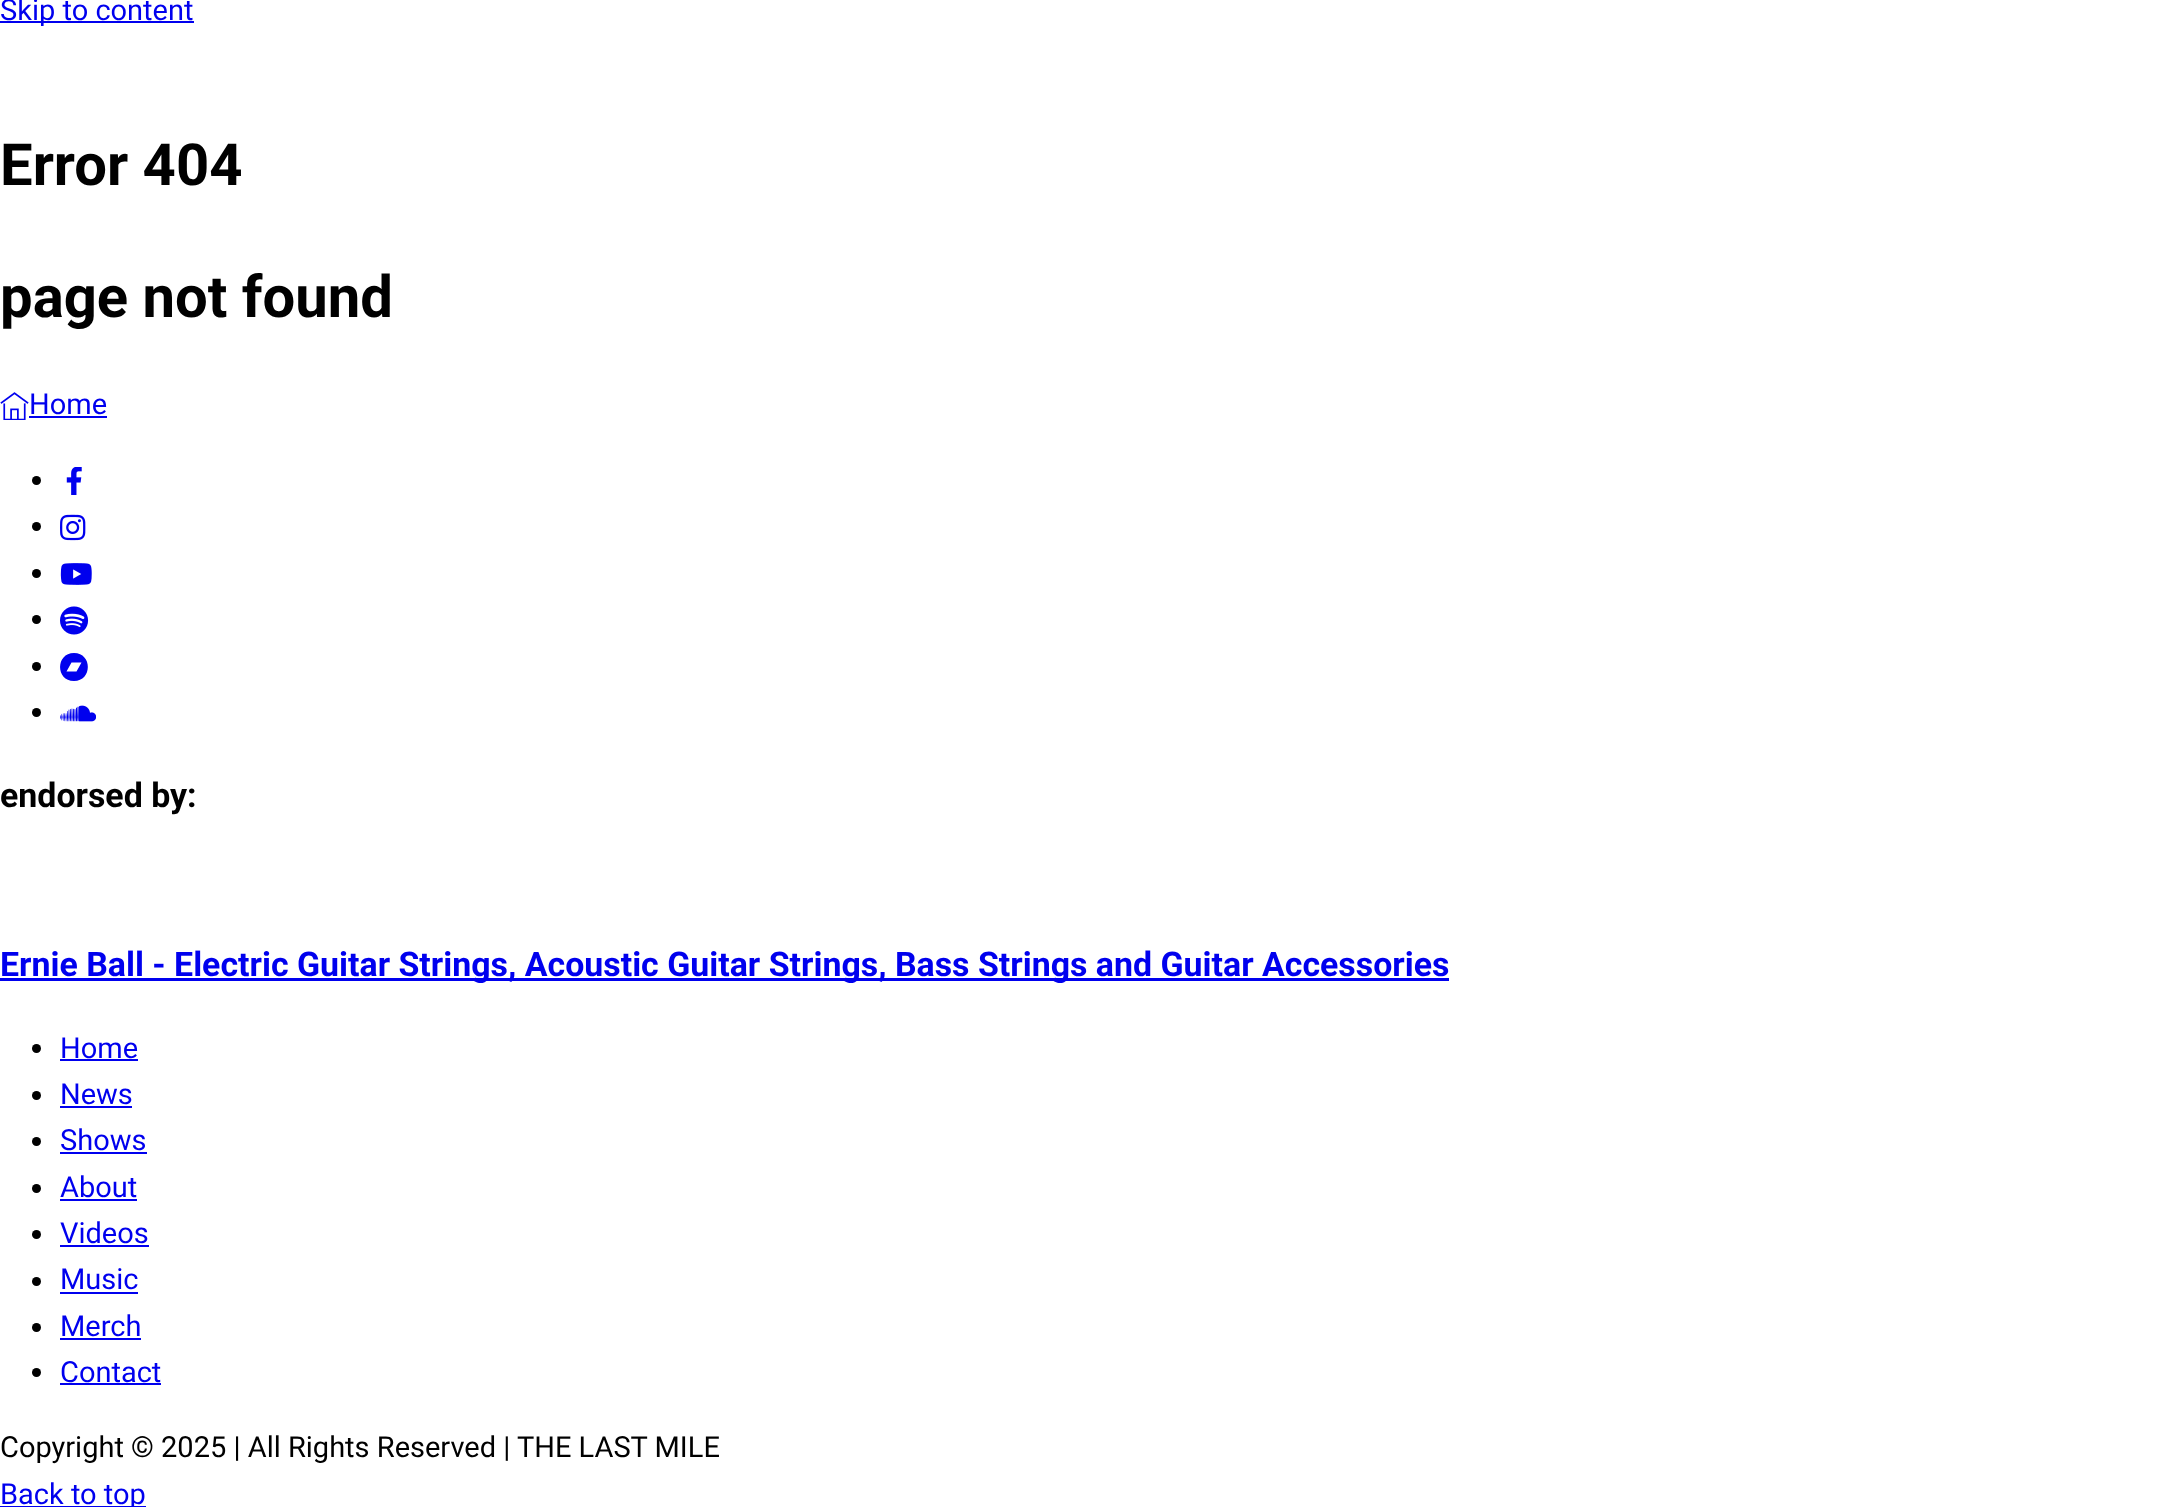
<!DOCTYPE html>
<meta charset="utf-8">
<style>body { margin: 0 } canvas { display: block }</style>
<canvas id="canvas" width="2181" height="1507"></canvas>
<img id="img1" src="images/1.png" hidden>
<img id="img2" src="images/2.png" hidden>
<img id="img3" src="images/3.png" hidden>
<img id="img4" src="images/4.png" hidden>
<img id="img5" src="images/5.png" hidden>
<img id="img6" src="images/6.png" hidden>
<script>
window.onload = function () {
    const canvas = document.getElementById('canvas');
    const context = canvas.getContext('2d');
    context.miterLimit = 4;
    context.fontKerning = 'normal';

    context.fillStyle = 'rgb(255, 255, 255)';
    context.fillRect(0, 0, 2181, 1507);
    context.fillStyle = 'rgb(0, 0, 238)';
    context.fillRect(0, 21, 194, 2);
    context.drawImage(document.getElementById('img1'), 0, 392, 29, 28);
    context.fillRect(29, 416, 78, 2);
    context.fillStyle = 'rgb(0, 0, 0)';
    context.beginPath();
    context.arc(36.5, 480.5, 4.5, 0, 2 * Math.PI);
    context.fill();
    context.drawImage(document.getElementById('img2'), 66, 467, 16, 28);
    context.beginPath();
    context.arc(36.5, 526.5, 4.5, 0, 2 * Math.PI);
    context.fill();
    context.drawImage(document.getElementById('img3'), 60, 514, 26, 27);
    context.beginPath();
    context.arc(36.5, 573.5, 4.5, 0, 2 * Math.PI);
    context.fill();
    context.drawImage(document.getElementById('img4'), 60, 563, 32, 22);
    context.beginPath();
    context.arc(36.5, 619.5, 4.5, 0, 2 * Math.PI);
    context.fill();
    context.drawImage(document.getElementById('img5'), 60, 606, 29, 29);
    context.beginPath();
    context.arc(36.5, 666.5, 4.5, 0, 2 * Math.PI);
    context.fill();
    context.fillStyle = 'rgb(0, 0, 238)';
    context.beginPath();
    context.moveTo(74, 653);
    context.bezierCurveTo(92.5, 653, 92.5, 681, 74, 681);
    context.bezierCurveTo(55.5, 681, 55.5, 653, 74, 653);
    context.closePath();
    context.moveTo(76.5, 671.5);
    context.lineTo(81.5, 662.5);
    context.lineTo(71.5, 662.5);
    context.lineTo(66.5, 671.5);
    context.closePath();
    context.fill();
    context.fillStyle = 'rgb(0, 0, 0)';
    context.beginPath();
    context.arc(36.5, 712.5, 4.5, 0, 2 * Math.PI);
    context.fill();
    context.drawImage(document.getElementById('img6'), 60, 705, 36, 17);
    context.fillStyle = 'rgb(0, 0, 238)';
    context.fillRect(0, 978, 1449, 3);
    context.fillStyle = 'rgb(0, 0, 0)';
    context.beginPath();
    context.arc(36.5, 1048.5, 4.5, 0, 2 * Math.PI);
    context.fill();
    context.fillStyle = 'rgb(0, 0, 238)';
    context.fillRect(60, 1059, 78, 2);
    context.fillStyle = 'rgb(0, 0, 0)';
    context.beginPath();
    context.arc(36.5, 1095.5, 4.5, 0, 2 * Math.PI);
    context.fill();
    context.fillStyle = 'rgb(0, 0, 238)';
    context.fillRect(60, 1106, 72, 2);
    context.fillStyle = 'rgb(0, 0, 0)';
    context.beginPath();
    context.arc(36.5, 1141.5, 4.5, 0, 2 * Math.PI);
    context.fill();
    context.fillStyle = 'rgb(0, 0, 238)';
    context.fillRect(60, 1152, 87, 2);
    context.fillStyle = 'rgb(0, 0, 0)';
    context.beginPath();
    context.arc(36.5, 1188.5, 4.5, 0, 2 * Math.PI);
    context.fill();
    context.fillStyle = 'rgb(0, 0, 238)';
    context.fillRect(60, 1199, 77, 2);
    context.fillStyle = 'rgb(0, 0, 0)';
    context.beginPath();
    context.arc(36.5, 1234.5, 4.5, 0, 2 * Math.PI);
    context.fill();
    context.fillStyle = 'rgb(0, 0, 238)';
    context.fillRect(60, 1245, 89, 2);
    context.fillStyle = 'rgb(0, 0, 0)';
    context.beginPath();
    context.arc(36.5, 1281.5, 4.5, 0, 2 * Math.PI);
    context.fill();
    context.fillStyle = 'rgb(0, 0, 238)';
    context.fillRect(60, 1292, 78, 2);
    context.fillStyle = 'rgb(0, 0, 0)';
    context.beginPath();
    context.arc(36.5, 1327.5, 4.5, 0, 2 * Math.PI);
    context.fill();
    context.fillStyle = 'rgb(0, 0, 238)';
    context.fillRect(60, 1338, 81, 2);
    context.fillStyle = 'rgb(0, 0, 0)';
    context.beginPath();
    context.arc(36.5, 1372.5, 4.5, 0, 2 * Math.PI);
    context.fill();
    context.fillStyle = 'rgb(0, 0, 238)';
    context.fillRect(60, 1383, 101, 2);
    context.fillRect(0, 1506, 146, 1);
    context.font = '29px Roboto';
    context.fillText('Skip to content', 0, 20);
    context.font = 'bold 58px Roboto';
    context.fillStyle = 'rgb(0, 0, 0)';
    context.fillText('Error 404', 0, 185);
    context.fillText('page not found', 0, 317);
    context.font = '29px Roboto';
    context.fillStyle = 'rgb(0, 0, 238)';
    context.fillText('Home', 29, 414);
    context.font = 'bold 33.9px Roboto';
    context.fillStyle = 'rgb(0, 0, 0)';
    context.fillText('endorsed by:', 0, 807);
    context.fillStyle = 'rgb(0, 0, 238)';
    context.fillText('Ernie Ball - Electric Guitar Strings, Acoustic Guitar Strings, Bass Strings and Guitar Accessories', 0, 976);
    context.font = '29px Roboto';
    context.fillText('Home', 60, 1058);
    context.fillText('News', 60, 1104);
    context.fillText('Shows', 60, 1150);
    context.fillText('About', 60, 1197);
    context.fillText('Videos', 60, 1243);
    context.fillText('Music', 60, 1289);
    context.fillText('Merch', 60, 1336);
    context.fillText('Contact', 60, 1382);
    context.fillStyle = 'rgb(0, 0, 0)';
    context.fillText('Copyright © 2025 | All Rights Reserved | THE LAST MILE', 0, 1457);
    context.fillStyle = 'rgb(0, 0, 238)';
    context.fillText('Back to top', 0, 1504);
};
</script>
